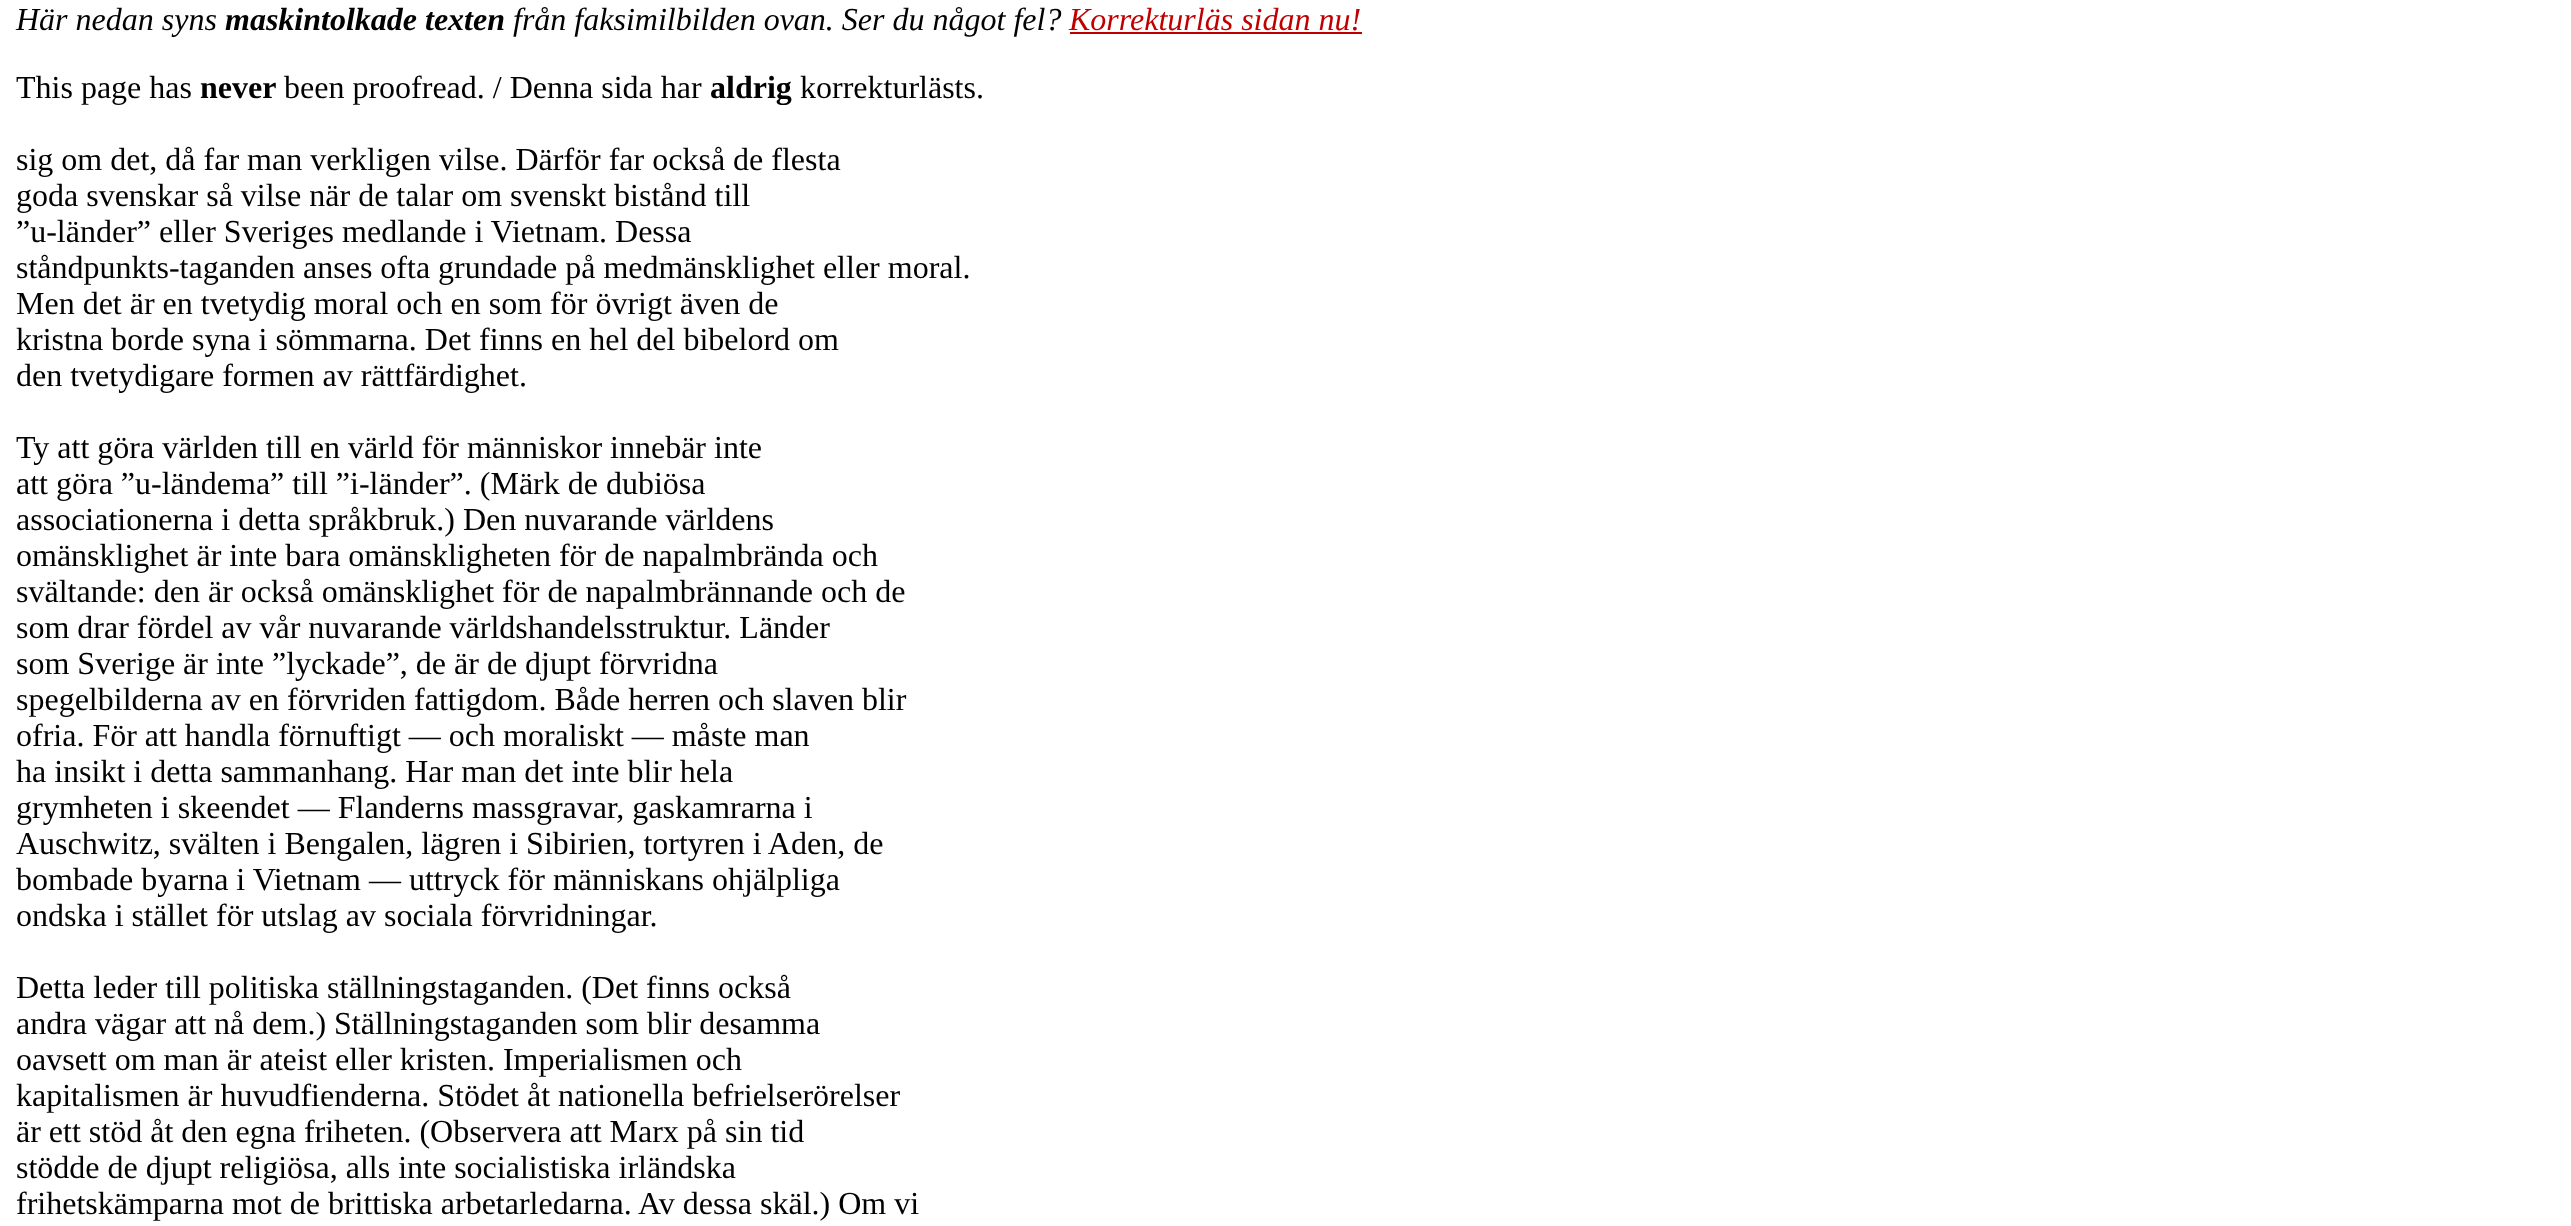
<!DOCTYPE html>
<meta charset="utf-8">
<style>body { margin: 0 } canvas { display: block }</style>
<canvas id="canvas" width="2571" height="1226"></canvas>
<script>
window.onload = function () {
    const canvas = document.getElementById('canvas');
    const context = canvas.getContext('2d');
    context.miterLimit = 4;
    context.fontKerning = 'normal';

    context.fillStyle = 'rgb(255, 255, 255)';
    context.fillRect(0, 0, 2571, 1226);
    context.fillStyle = 'rgb(192, 0, 0)';
    context.fillRect(1070, 32, 292, 2);
    context.font = 'italic 32px Liberation Serif';
    context.fillStyle = 'rgb(0, 0, 0)';
    context.fillText('Här nedan syns', 16, 30);
    context.font = 'italic bold 32px Liberation Serif';
    context.fillText('maskintolkade texten', 225, 30);
    context.font = 'italic 32px Liberation Serif';
    context.fillText('från faksimilbilden ovan. Ser du något fel?', 513, 30);
    context.fillStyle = 'rgb(192, 0, 0)';
    context.fillText('Korrekturläs sidan nu!', 1069, 30);
    context.font = '32px Liberation Serif';
    context.fillStyle = 'rgb(0, 0, 0)';
    context.fillText('This page has', 16, 98);
    context.font = 'bold 32px Liberation Serif';
    context.fillText('never', 200, 98);
    context.font = '32px Liberation Serif';
    context.fillText('been proofread. / Denna sida har', 284, 98);
    context.font = 'bold 32px Liberation Serif';
    context.fillText('aldrig', 710, 98);
    context.font = '32px Liberation Serif';
    context.fillText('korrekturlästs.', 800, 98);
    context.fillText('sig om det, då far man verkligen vilse. Därför far också de flesta', 16, 170);
    context.fillText('goda svenskar så vilse när de talar om svenskt bistånd till', 16, 206);
    context.fillText('”u-länder” eller Sveriges medlande i Vietnam. Dessa', 16, 242);
    context.fillText('ståndpunkts-taganden anses ofta grundade på medmänsklighet eller moral.', 16, 278);
    context.fillText('Men det är en tvetydig moral och en som för övrigt även de', 16, 314);
    context.fillText('kristna borde syna i sömmarna. Det finns en hel del bibelord om', 16, 350);
    context.fillText('den tvetydigare formen av rättfärdighet.', 16, 386);
    context.fillText('Ty att göra världen till en värld för människor innebär inte', 16, 458);
    context.fillText('att göra ”u-ländema” till ”i-länder”. (Märk de dubiösa', 16, 494);
    context.fillText('associationerna i detta språkbruk.) Den nuvarande världens', 16, 530);
    context.fillText('omänsklighet är inte bara omänskligheten för de napalmbrända och', 16, 566);
    context.fillText('svältande: den är också omänsklighet för de napalmbrännande och de', 16, 602);
    context.fillText('som drar fördel av vår nuvarande världshandelsstruktur. Länder', 16, 638);
    context.fillText('som Sverige är inte ”lyckade”, de är de djupt förvridna', 16, 674);
    context.fillText('spegelbilderna av en förvriden fattigdom. Både herren och slaven blir', 16, 710);
    context.fillText('ofria. För att handla förnuftigt — och moraliskt — måste man', 16, 746);
    context.fillText('ha insikt i detta sammanhang. Har man det inte blir hela', 16, 782);
    context.fillText('grymheten i skeendet — Flanderns massgravar, gaskamrarna i', 16, 818);
    context.fillText('Auschwitz, svälten i Bengalen, lägren i Sibirien, tortyren i Aden, de', 16, 854);
    context.fillText('bombade byarna i Vietnam — uttryck för människans ohjälpliga', 16, 890);
    context.fillText('ondska i stället för utslag av sociala förvridningar.', 16, 926);
    context.fillText('Detta leder till politiska ställningstaganden. (Det finns också', 16, 998);
    context.fillText('andra vägar att nå dem.) Ställningstaganden som blir desamma', 16, 1034);
    context.fillText('oavsett om man är ateist eller kristen. Imperialismen och', 16, 1070);
    context.fillText('kapitalismen är huvudfienderna. Stödet åt nationella befrielserörelser', 16, 1106);
    context.fillText('är ett stöd åt den egna friheten. (Observera att Marx på sin tid', 16, 1142);
    context.fillText('stödde de djupt religiösa, alls inte socialistiska irländska', 16, 1178);
    context.fillText('frihetskämparna mot de brittiska arbetarledarna. Av dessa skäl.) Om vi', 16, 1214);
};
</script>
